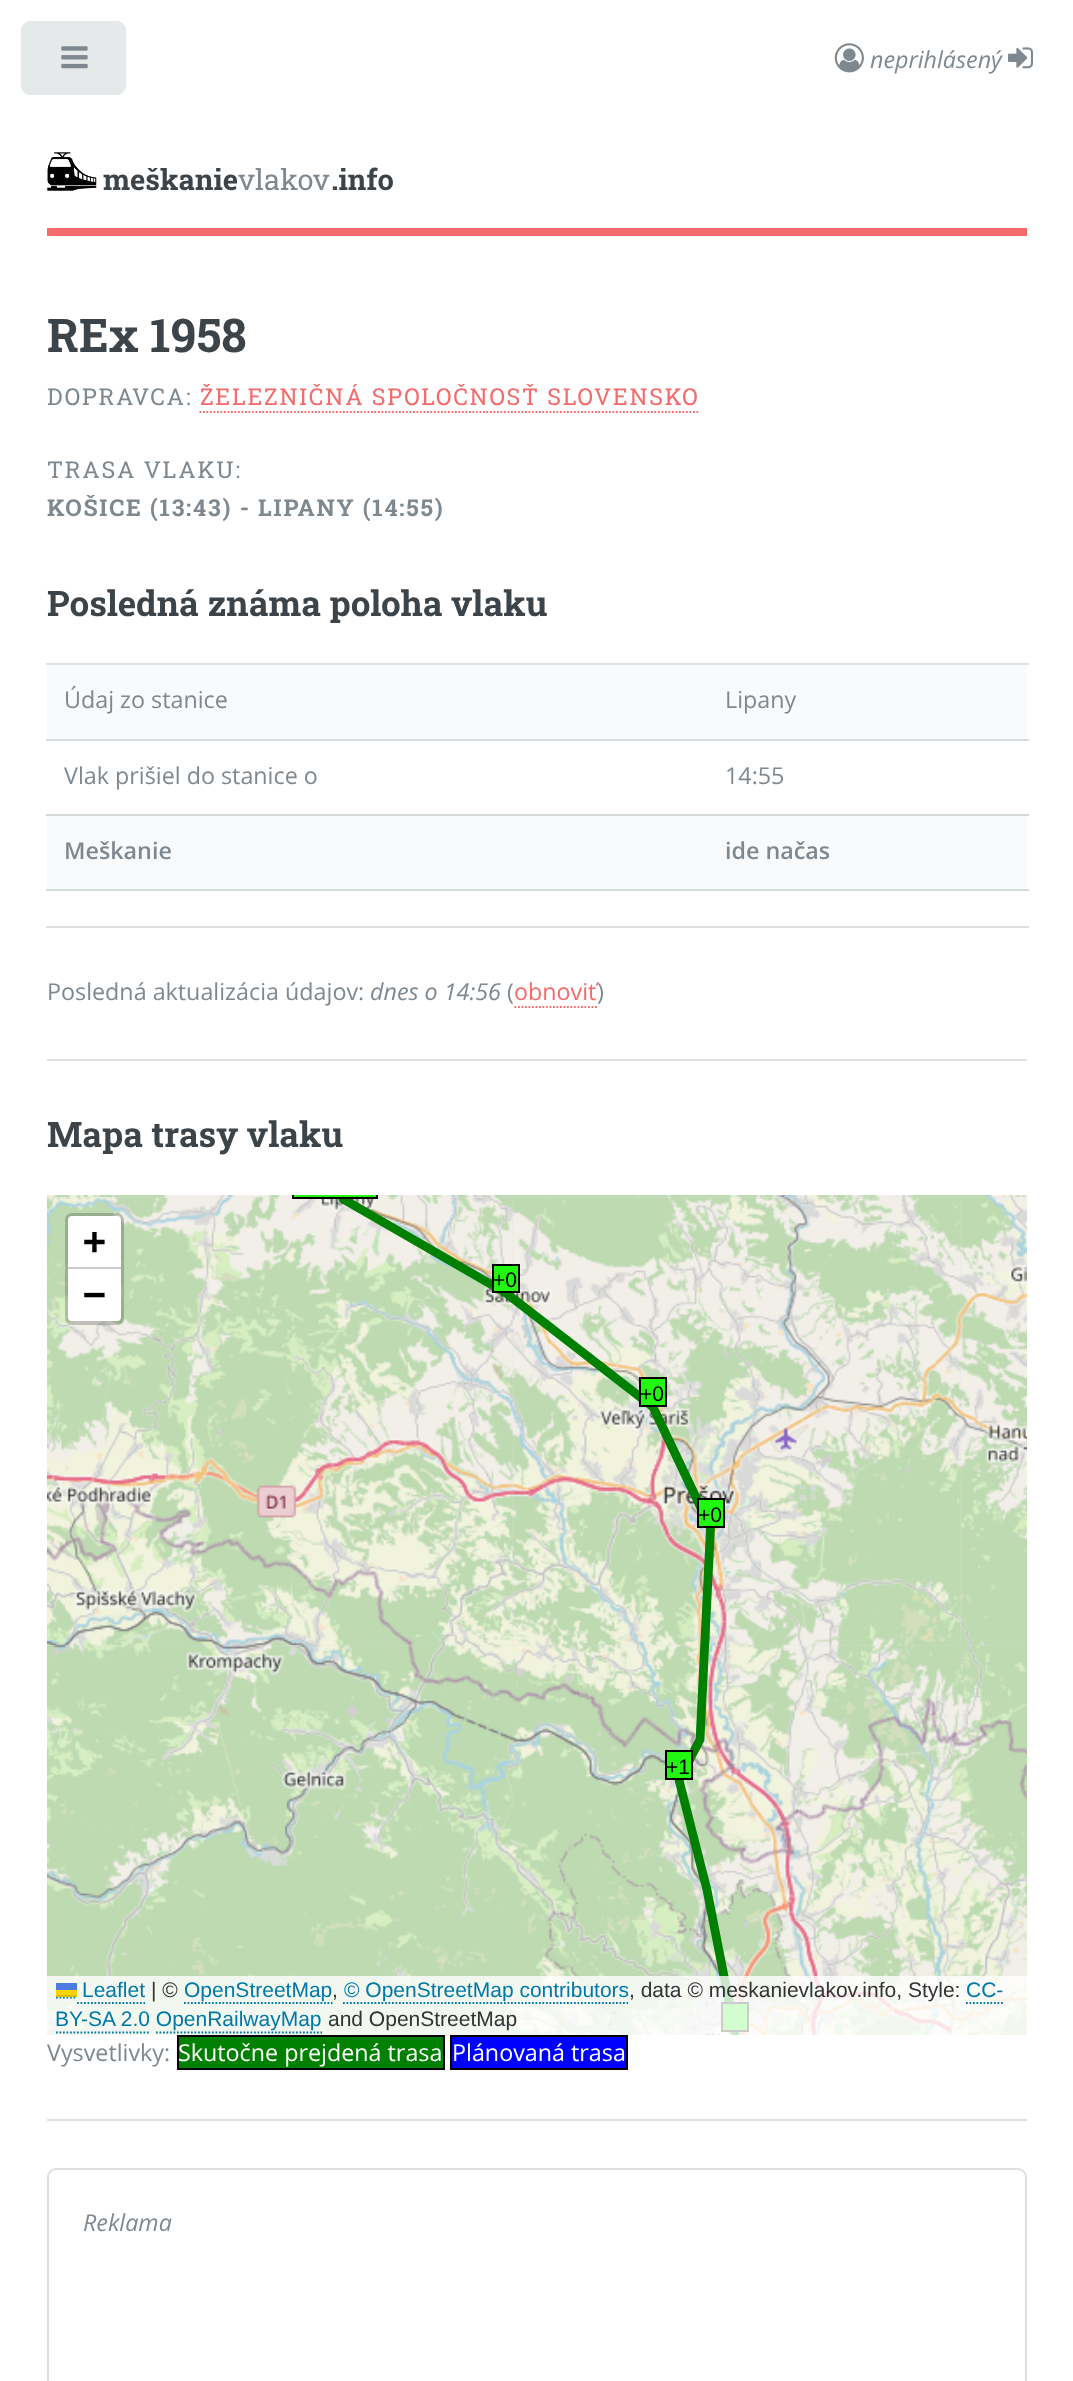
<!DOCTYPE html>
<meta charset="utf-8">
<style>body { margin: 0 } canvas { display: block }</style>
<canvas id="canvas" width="1073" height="2381"></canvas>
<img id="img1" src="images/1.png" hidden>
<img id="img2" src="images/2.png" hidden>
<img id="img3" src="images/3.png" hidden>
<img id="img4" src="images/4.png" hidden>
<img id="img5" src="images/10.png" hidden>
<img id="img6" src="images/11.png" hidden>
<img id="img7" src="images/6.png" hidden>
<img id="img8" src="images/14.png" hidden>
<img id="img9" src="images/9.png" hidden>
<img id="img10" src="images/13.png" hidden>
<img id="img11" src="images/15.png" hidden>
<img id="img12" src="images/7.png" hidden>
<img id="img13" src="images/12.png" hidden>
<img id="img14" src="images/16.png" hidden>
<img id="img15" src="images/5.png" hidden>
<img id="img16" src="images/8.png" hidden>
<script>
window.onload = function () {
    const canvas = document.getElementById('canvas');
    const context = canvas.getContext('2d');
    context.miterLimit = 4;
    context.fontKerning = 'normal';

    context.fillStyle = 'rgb(255, 255, 255)';
    context.fillRect(0, 0, 1073, 2381);
    context.fillStyle = 'rgb(221, 225, 227)';
    context.fillRect(46, 663, 983, 2);
    context.fillStyle = 'rgb(230, 233, 233)';
    context.beginPath();
    context.roundRect(21, 21, 105, 74, 9);
    context.fill();
    context.drawImage(document.getElementById('img1'), 61, 46, 27, 23);
    context.fillStyle = 'rgb(245, 106, 106)';
    context.fillRect(47, 228, 980, 8);
    context.drawImage(document.getElementById('img2'), 834, 43, 30, 30);
    context.drawImage(document.getElementById('img3'), 1008, 47, 25, 22);
    context.drawImage(document.getElementById('img4'), 47, 152, 50, 39);
    context.beginPath();
    context.moveTo(199.5, 412);
    context.lineTo(700, 412);
    context.strokeStyle = 'rgb(245, 106, 106)';
    context.lineWidth = 1.8;
    context.setLineDash([1.75, 1.75]);
    context.stroke();
    context.fillStyle = 'rgb(249, 250, 251)';
    context.fillRect(47, 665, 980, 74);
    context.fillStyle = 'rgb(213, 218, 220)';
    context.fillRect(46, 739, 983, 2);
    context.fillStyle = 'rgb(212, 217, 219)';
    context.fillRect(46, 814, 983, 2);
    context.fillStyle = 'rgb(249, 250, 251)';
    context.fillRect(47, 816, 980, 73);
    context.fillStyle = 'rgb(213, 218, 220)';
    context.fillRect(46, 889, 983, 2);
    context.fillStyle = 'rgb(221, 225, 227)';
    context.fillRect(46, 926, 983, 2);
    context.beginPath();
    context.moveTo(514.5, 1007);
    context.lineTo(597, 1007);
    context.stroke();
    context.fillRect(47, 1059, 980, 2);
    context.fillStyle = 'rgb(221, 221, 221)';
    context.fillRect(47, 1195, 980, 840);
    context.drawImage(document.getElementById('img5'), 64, 1196, 449, 449);
    context.beginPath();
    context.roundRect(67, 1215, 55, 108, 5);
    context.strokeStyle = 'rgba(0, 0, 0, 0.2)';
    context.lineWidth = 4;
    context.setLineDash([]);
    context.stroke();
    context.fillStyle = 'rgb(255, 255, 255)';
    context.beginPath();
    context.roundRect(68, 1216, 53, 53, [4, 4, 0, 0]);
    context.fill();
    context.fillStyle = 'rgb(204, 204, 204)';
    context.fillRect(68, 1267, 53, 2);
    context.fillStyle = 'rgb(255, 255, 255)';
    context.beginPath();
    context.roundRect(68, 1269, 53, 52, [0, 0, 4, 4]);
    context.fill();
    context.drawImage(document.getElementById('img6'), 512, 1196, 449, 449);
    context.drawImage(document.getElementById('img7'), 64, 1195, 449, 2);
    context.drawImage(document.getElementById('img8'), 64, 1644, 449, 391);
    context.drawImage(document.getElementById('img9'), 47, 1196, 18, 449);
    context.drawImage(document.getElementById('img10'), 47, 1644, 18, 391);
    context.drawImage(document.getElementById('img11'), 512, 1644, 449, 391);
    context.drawImage(document.getElementById('img12'), 512, 1195, 449, 2);
    context.drawImage(document.getElementById('img13'), 960, 1196, 67, 449);
    context.drawImage(document.getElementById('img14'), 960, 1644, 67, 391);
    context.save();
    context.beginPath();
    context.rect(47, 1195, 980, 840);
    context.clip();
    context.beginPath();
    context.moveTo(735, 2032);
    context.lineTo(707, 1890);
    context.lineTo(679, 1780);
    context.lineTo(700, 1739.5);
    context.lineTo(710.5, 1528);
    context.lineTo(653, 1407);
    context.lineTo(506, 1293);
    context.lineTo(343, 1199);
    context.strokeStyle = 'rgb(0, 128, 0)';
    context.lineWidth = 8.8;
    context.lineCap = 'round';
    context.lineJoin = 'round';
    context.stroke();
    context.restore();
    context.fillStyle = 'rgb(33, 247, 17)';
    context.beginPath();
    context.rect(722, 2003, 26, 28);
    context.fill();
    context.strokeStyle = 'rgb(0, 0, 0)';
    context.lineWidth = 2;
    context.stroke();
    context.fillStyle = 'rgba(255, 255, 255, 0.8)';
    context.fillRect(47, 1976, 980, 59);
    context.beginPath();
    context.moveTo(56, 1997.5);
    context.lineTo(77, 1997.5);
    context.strokeStyle = 'rgb(0, 120, 168)';
    context.lineWidth = 1.8;
    context.setLineDash([1.75, 1.75]);
    context.stroke();
    context.beginPath();
    context.moveTo(77, 2003);
    context.lineTo(145, 2003);
    context.stroke();
    context.fillStyle = 'rgb(76, 123, 225)';
    context.fillRect(56, 1983, 21, 7);
    context.fillStyle = 'rgb(255, 213, 0)';
    context.fillRect(56, 1990, 21, 5);
    context.fillStyle = 'rgb(224, 188, 0)';
    context.fillRect(56, 1995, 21, 2);
    context.beginPath();
    context.moveTo(184, 2003);
    context.lineTo(332.5, 2003);
    context.stroke();
    context.beginPath();
    context.moveTo(343, 2003);
    context.lineTo(628, 2003);
    context.stroke();
    context.beginPath();
    context.moveTo(966, 2003);
    context.lineTo(1003, 2003);
    context.stroke();
    context.beginPath();
    context.moveTo(56, 2032.5);
    context.lineTo(150.5, 2032.5);
    context.stroke();
    context.beginPath();
    context.moveTo(156, 2032.5);
    context.lineTo(322, 2032.5);
    context.stroke();
    context.drawImage(document.getElementById('img15'), 48, 1195, 17, 2);
    context.drawImage(document.getElementById('img16'), 960, 1195, 68, 2);
    context.fillStyle = 'rgb(33, 247, 17)';
    context.fillRect(292, 1195, 86, 2);
    context.save();
    context.beginPath();
    context.rect(47, 1195, 980, 840);
    context.clip();
    context.strokeStyle = 'rgb(0, 0, 0)';
    context.lineWidth = 2;
    context.setLineDash([]);
    context.strokeRect(293, 1170, 84, 28);
    context.restore();
    context.beginPath();
    context.rect(493, 1265, 26, 27);
    context.fill();
    context.strokeStyle = 'rgb(0, 0, 0)';
    context.lineWidth = 2;
    context.setLineDash([]);
    context.stroke();
    context.beginPath();
    context.rect(640, 1378, 26, 28);
    context.fill();
    context.stroke();
    context.beginPath();
    context.rect(698, 1499, 26, 28);
    context.fill();
    context.stroke();
    context.beginPath();
    context.rect(666, 1751, 26, 28);
    context.fill();
    context.stroke();
    context.fillStyle = 'rgb(0, 128, 0)';
    context.beginPath();
    context.rect(178, 2036, 266, 33);
    context.fill();
    context.stroke();
    context.fillStyle = 'rgb(0, 0, 255)';
    context.beginPath();
    context.rect(451, 2036, 176, 33);
    context.fill();
    context.stroke();
    context.fillStyle = 'rgb(221, 225, 227)';
    context.fillRect(47, 2119, 980, 2);
    context.beginPath();
    context.roundRect(48, 2169, 978, 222, 8);
    context.strokeStyle = 'rgb(221, 225, 227)';
    context.stroke();
    context.font = 'italic 23.3px Open Sans';
    context.fillStyle = 'rgb(127, 136, 143)';
    context.fillText('neprihlásený', 870, 68);
    context.font = 'bold 29px Roboto Slab';
    context.fillStyle = 'rgb(61, 68, 73)';
    context.fillText('meškanie', 103, 190);
    context.font = '29px Roboto Slab';
    context.fillStyle = 'rgb(127, 136, 143)';
    context.fillText('vlakov', 238, 190);
    context.font = 'bold 29px Roboto Slab';
    context.fillStyle = 'rgb(61, 68, 73)';
    context.fillText('.info', 331, 190);
    context.font = 'bold 46.5px Roboto Slab';
    context.fillText('REx 1958', 47, 352);
    context.letterSpacing = '1.75px';
    context.font = '23.3px Roboto Slab';
    context.fillStyle = 'rgb(127, 136, 143)';
    context.fillText('DOPRAVCA:', 47, 405);
    context.fillStyle = 'rgb(245, 106, 106)';
    context.fillText('ŽELEZNIČNÁ SPOLOČNOSŤ SLOVENSKO', 200, 405);
    context.fillStyle = 'rgb(127, 136, 143)';
    context.fillText('TRASA VLAKU:', 47, 478);
    context.font = 'bold 23.3px Roboto Slab';
    context.fillText('KOŠICE (13:43) - LIPANY (14:55)', 47, 516);
    context.letterSpacing = '0px';
    context.font = 'bold 35px Roboto Slab';
    context.fillStyle = 'rgb(61, 68, 73)';
    context.fillText('Posledná známa poloha vlaku', 47, 616);
    context.font = '23.3px Open Sans';
    context.fillStyle = 'rgb(127, 136, 143)';
    context.fillText('Údaj zo stanice', 64, 708);
    context.fillText('Lipany', 725, 708);
    context.fillText('Vlak prišiel do stanice o', 64, 784);
    context.fillText('14:55', 725, 784);
    context.font = '600 23.3px Open Sans';
    context.fillText('Meškanie', 64, 859);
    context.fillText('ide načas', 725, 859);
    context.font = '23.3px Open Sans';
    context.fillText('Posledná aktualizácia údajov:', 47, 1000);
    context.font = 'italic 23.3px Open Sans';
    context.fillText('dnes o 14:56', 370, 1000);
    context.font = '23.3px Open Sans';
    context.fillText('(', 507, 1000);
    context.fillStyle = 'rgb(245, 106, 106)';
    context.fillText('obnoviť', 514, 1000);
    context.fillStyle = 'rgb(127, 136, 143)';
    context.fillText(')', 597, 1000);
    context.font = 'bold 35px Roboto Slab';
    context.fillStyle = 'rgb(61, 68, 73)';
    context.fillText('Mapa trasy vlaku', 47, 1147);
    context.font = 'bold 38px DejaVu Sans Mono';
    context.fillStyle = 'rgb(0, 0, 0)';
    context.fillText('+', 83, 1254);
    context.fillText('−', 83, 1307);
    context.font = '21px Liberation Sans';
    context.fillStyle = 'rgb(0, 120, 168)';
    context.fillText('Leaflet', 82, 1997);
    context.fillStyle = 'rgb(51, 51, 51)';
    context.fillText('| ©', 151, 1997);
    context.fillStyle = 'rgb(0, 120, 168)';
    context.fillText('OpenStreetMap', 184, 1997);
    context.fillStyle = 'rgb(51, 51, 51)';
    context.fillText(',', 332, 1997);
    context.fillStyle = 'rgb(0, 120, 168)';
    context.fillText('© OpenStreetMap contributors', 344, 1997);
    context.fillStyle = 'rgb(51, 51, 51)';
    context.fillText(', data © meskanievlakov.info, Style:', 629, 1997);
    context.fillStyle = 'rgb(0, 120, 168)';
    context.fillText('CC-', 966, 1997);
    context.fillText('BY-SA 2.0 OpenRailwayMap', 55, 2026);
    context.fillStyle = 'rgb(51, 51, 51)';
    context.fillText('and OpenStreetMap', 328, 2026);
    context.fillStyle = 'rgb(0, 0, 0)';
    context.fillText('+0', 493, 1287);
    context.fillText('+0', 640, 1401);
    context.fillText('+0', 698, 1522);
    context.fillText('+1', 666, 1774);
    context.font = '23.3px Open Sans';
    context.fillStyle = 'rgb(127, 136, 143)';
    context.fillText('Vysvetlivky:', 47, 2061);
    context.fillStyle = 'rgb(255, 255, 255)';
    context.fillText('Skutočne prejdená trasa', 178, 2061);
    context.fillText('Plánovaná trasa', 452, 2061);
    context.font = 'italic 23.3px Open Sans';
    context.fillStyle = 'rgb(127, 136, 143)';
    context.fillText('Reklama', 83, 2231);
};
</script>
